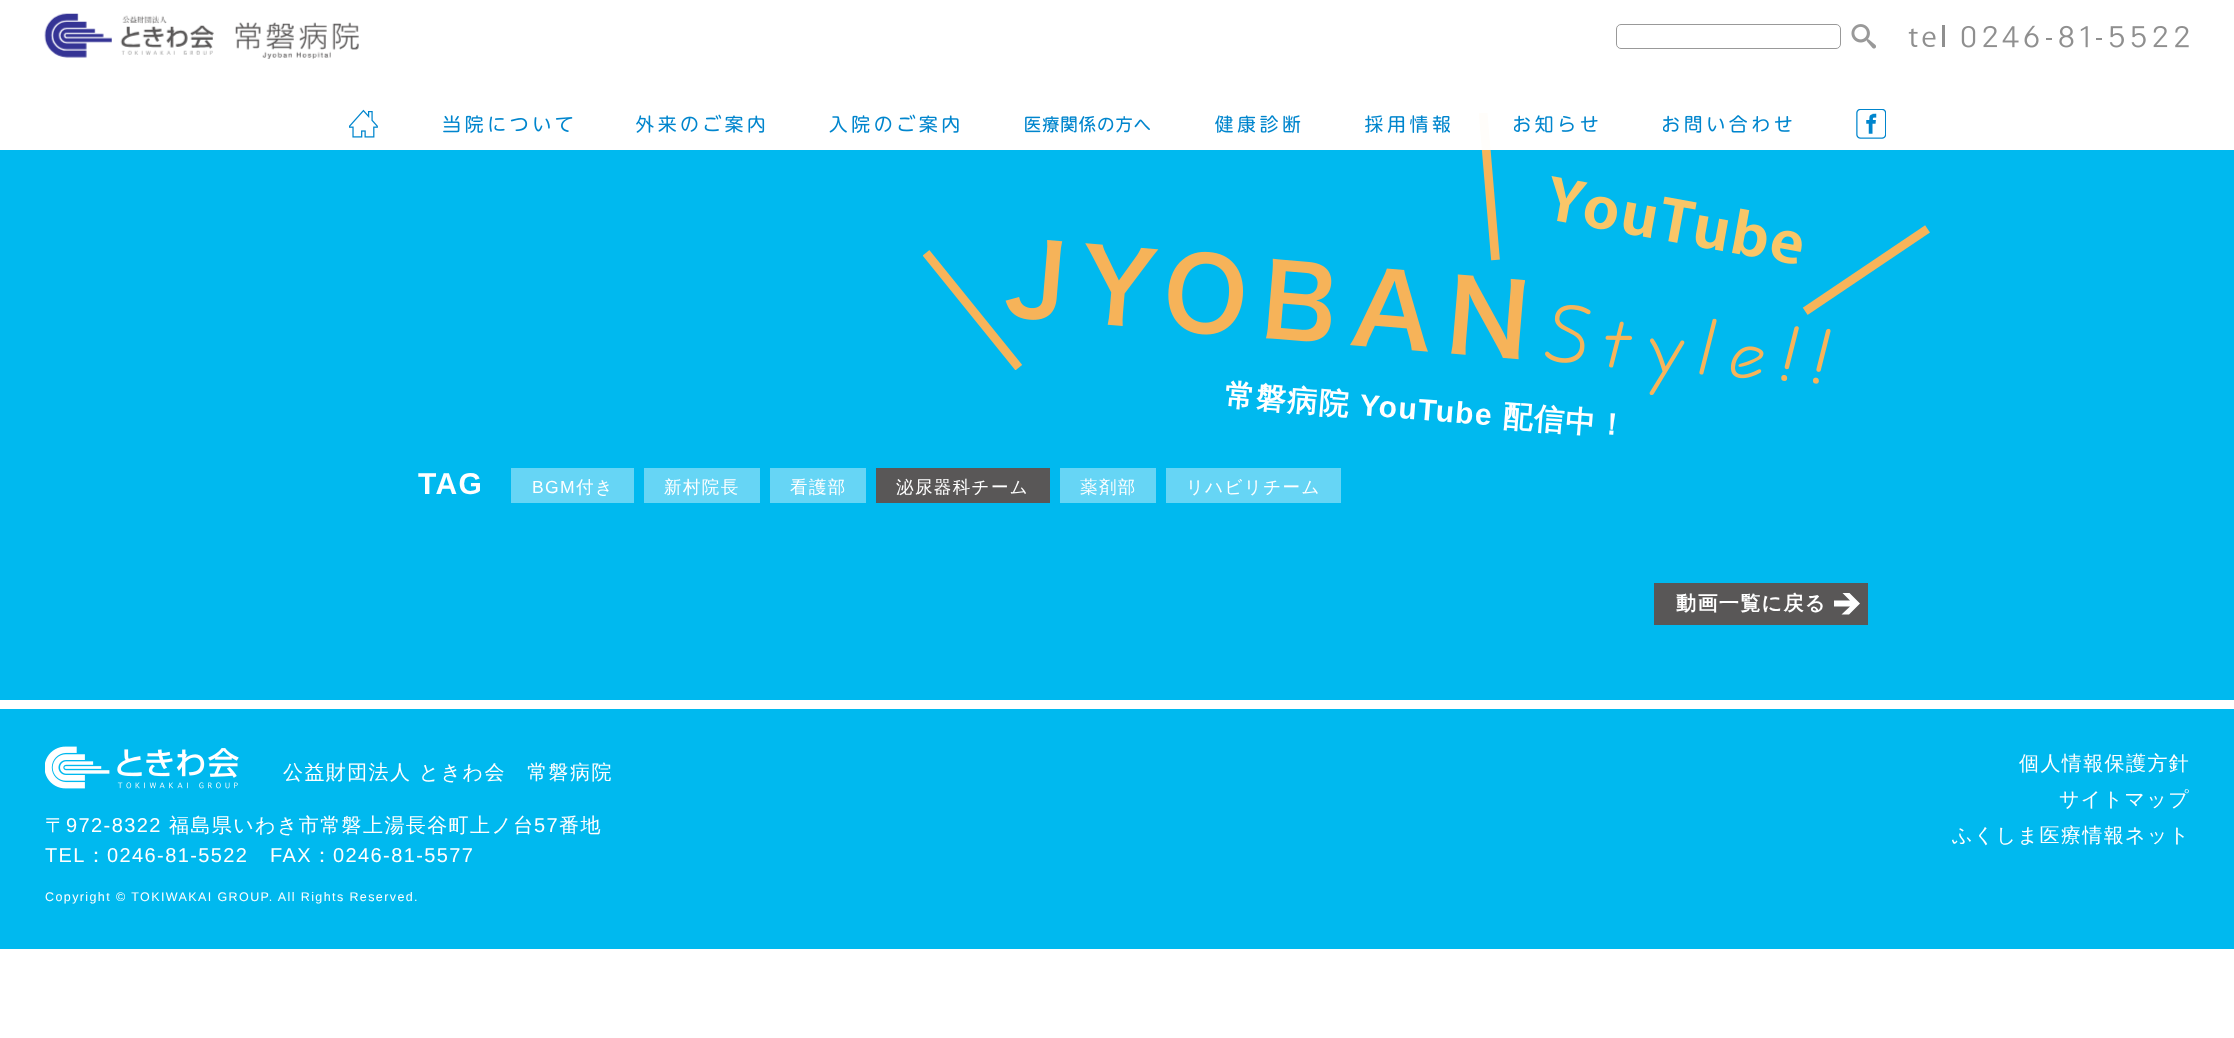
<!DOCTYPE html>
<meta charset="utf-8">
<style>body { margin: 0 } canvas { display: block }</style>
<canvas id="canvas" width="2234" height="1038"></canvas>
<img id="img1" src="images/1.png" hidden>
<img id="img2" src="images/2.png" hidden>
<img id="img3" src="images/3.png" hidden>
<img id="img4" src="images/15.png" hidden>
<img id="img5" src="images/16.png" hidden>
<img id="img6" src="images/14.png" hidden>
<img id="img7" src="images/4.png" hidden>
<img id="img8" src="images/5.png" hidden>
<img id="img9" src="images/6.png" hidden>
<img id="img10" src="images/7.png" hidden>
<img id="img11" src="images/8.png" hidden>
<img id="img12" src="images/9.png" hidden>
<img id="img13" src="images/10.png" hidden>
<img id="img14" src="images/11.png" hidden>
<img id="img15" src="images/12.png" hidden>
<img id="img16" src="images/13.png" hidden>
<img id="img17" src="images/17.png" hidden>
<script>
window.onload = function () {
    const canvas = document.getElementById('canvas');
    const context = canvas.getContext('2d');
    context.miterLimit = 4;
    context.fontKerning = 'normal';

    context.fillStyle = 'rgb(255, 255, 255)';
    context.fillRect(0, 0, 2234, 1038);
    context.drawImage(document.getElementById('img1'), 44, 13, 315, 46);
    context.beginPath();
    context.roundRect(1616.5, 24.5, 224, 24, 4.5);
    context.strokeStyle = 'rgb(153, 153, 153)';
    context.stroke();
    context.drawImage(document.getElementById('img2'), 1851, 24, 25, 25);
    context.drawImage(document.getElementById('img3'), 1908, 25, 281, 23);
    context.fillStyle = 'rgb(0, 185, 239)';
    context.fillRect(0, 150, 2234, 550);
    context.drawImage(document.getElementById('img4'), 923, 240, 602, 130);
    context.drawImage(document.getElementById('img5'), 1545, 305, 286, 90);
    context.drawImage(document.getElementById('img6'), 1479, 113, 451, 202);
    context.fillStyle = 'rgba(255, 255, 255, 0.97)';
    context.fillRect(1479, 113, 12, 37);
    context.drawImage(document.getElementById('img7'), 349, 109, 29, 29);
    context.drawImage(document.getElementById('img8'), 443, 115, 130, 18);
    context.drawImage(document.getElementById('img9'), 636, 114, 129, 19);
    context.drawImage(document.getElementById('img10'), 829, 114, 130, 19);
    context.drawImage(document.getElementById('img11'), 1025, 116, 125, 17);
    context.drawImage(document.getElementById('img12'), 1215, 115, 86, 18);
    context.drawImage(document.getElementById('img13'), 1365, 115, 85, 18);
    context.drawImage(document.getElementById('img14'), 1514, 115, 84, 18);
    context.drawImage(document.getElementById('img15'), 1663, 115, 129, 18);
    context.drawImage(document.getElementById('img16'), 1856, 109, 30, 30);
    context.fillStyle = 'rgb(102, 213, 245)';
    context.fillRect(511, 468, 123, 35);
    context.fillRect(644, 468, 116, 35);
    context.fillRect(770, 468, 96, 35);
    context.fillStyle = 'rgb(89, 87, 87)';
    context.fillRect(876, 468, 174, 35);
    context.fillStyle = 'rgb(102, 213, 245)';
    context.fillRect(1060, 468, 96, 35);
    context.fillRect(1166, 468, 175, 35);
    context.fillStyle = 'rgb(89, 87, 87)';
    context.fillRect(1654, 583, 214, 42);
    context.save();
    context.beginPath();
    context.rect(1834, 593, 27, 22);
    context.clip();
    context.fillStyle = 'rgb(255, 255, 255)';
    context.beginPath();
    context.moveTo(1849, 592.5);
    context.lineTo(1860, 603.5);
    context.lineTo(1849, 614.5);
    context.lineTo(1841.5, 614.5);
    context.lineTo(1850, 606.5);
    context.lineTo(1834, 606.5);
    context.lineTo(1834, 600.5);
    context.lineTo(1850, 600.5);
    context.lineTo(1842, 592.5);
    context.closePath();
    context.fill();
    context.restore();
    context.fillStyle = 'rgb(0, 185, 239)';
    context.fillRect(0, 709, 2234, 240);
    context.drawImage(document.getElementById('img17'), 45, 746, 194, 43);
    context.letterSpacing = '1.4px';
    context.font = 'bold 30px WenQuanYi Zen Hei';
    context.fillStyle = 'rgb(255, 255, 255)';
    context.save();
    context.translate(1224, 405);
    context.rotate(4.5 * Math.PI / 180);
    context.fillText('常磐病院', 0, 0);
    context.restore();
    context.font = 'bold 30px Liberation Sans';
    context.save();
    context.translate(1359, 415);
    context.rotate(4.5 * Math.PI / 180);
    context.fillText('YouTube', 0, 0);
    context.restore();
    context.font = 'bold 30px WenQuanYi Zen Hei';
    context.save();
    context.translate(1502, 426);
    context.rotate(4.5 * Math.PI / 180);
    context.fillText('配信中！', 0, 0);
    context.restore();
    context.font = 'bold 30px Liberation Sans';
    context.fillText('TAG', 418, 494);
    context.font = '17.5px Liberation Sans';
    context.fillText('BGM', 532, 493);
    context.font = '500 17.5px WenQuanYi Zen Hei';
    context.fillText('付き', 576, 493);
    context.fillText('新村院長', 664, 493);
    context.fillText('看護部', 790, 493);
    context.fillText('泌尿器科チーム', 896, 493);
    context.fillText('薬剤部', 1080, 493);
    context.fillText('リハビリチーム', 1186, 493);
    context.font = 'bold 20px WenQuanYi Zen Hei';
    context.fillText('動画一覧に戻る', 1676, 610);
    context.font = '500 20px WenQuanYi Zen Hei';
    context.fillText('公益財団法人 ときわ会　常磐病院', 283, 779);
    context.fillText('〒', 45, 832);
    context.font = '20px Liberation Sans';
    context.fillText('972-8322', 66, 832);
    context.font = '500 20px WenQuanYi Zen Hei';
    context.fillText('福島県いわき市常磐上湯長谷町上ノ台', 169, 832);
    context.font = '20px Liberation Sans';
    context.fillText('57', 534, 832);
    context.font = '500 20px WenQuanYi Zen Hei';
    context.fillText('番地', 559, 832);
    context.font = '20px Liberation Sans';
    context.fillText('TEL', 45, 862);
    context.font = '500 20px WenQuanYi Zen Hei';
    context.fillText('：', 86, 862);
    context.font = '20px Liberation Sans';
    context.fillText('0246-81-5522', 107, 862);
    context.fillText('FAX', 270, 862);
    context.font = '500 20px WenQuanYi Zen Hei';
    context.fillText('：', 312, 862);
    context.font = '20px Liberation Sans';
    context.fillText('0246-81-5577', 333, 862);
    context.font = '500 20px WenQuanYi Zen Hei';
    context.fillText('個人情報保護方針', 2019, 770);
    context.fillText('サイトマップ', 2059, 806);
    context.fillText('ふくしま医療情報ネット', 1952, 842);
    context.font = '12.5px Liberation Sans';
    context.fillText('Copyright © TOKIWAKAI GROUP. All Rights Reserved.', 45, 901);
};
</script>
